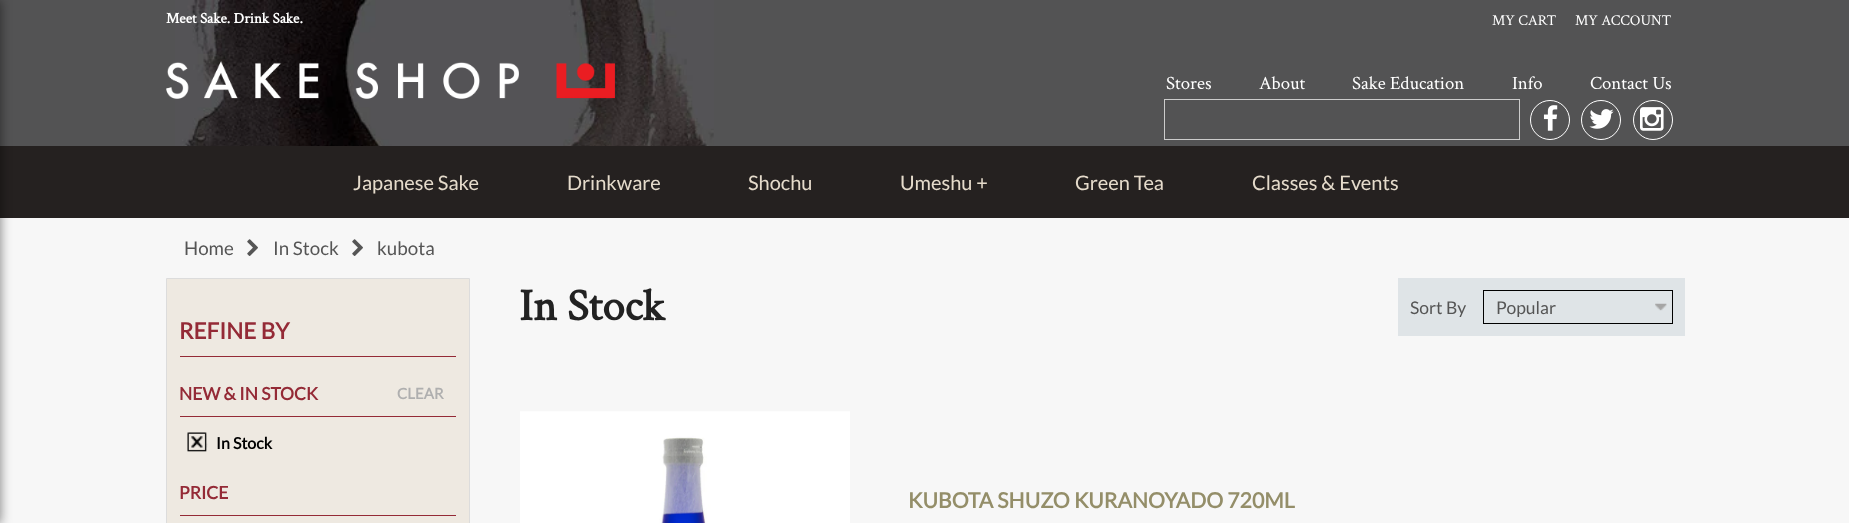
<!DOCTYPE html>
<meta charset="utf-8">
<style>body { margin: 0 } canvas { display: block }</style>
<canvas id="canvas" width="1849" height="523"></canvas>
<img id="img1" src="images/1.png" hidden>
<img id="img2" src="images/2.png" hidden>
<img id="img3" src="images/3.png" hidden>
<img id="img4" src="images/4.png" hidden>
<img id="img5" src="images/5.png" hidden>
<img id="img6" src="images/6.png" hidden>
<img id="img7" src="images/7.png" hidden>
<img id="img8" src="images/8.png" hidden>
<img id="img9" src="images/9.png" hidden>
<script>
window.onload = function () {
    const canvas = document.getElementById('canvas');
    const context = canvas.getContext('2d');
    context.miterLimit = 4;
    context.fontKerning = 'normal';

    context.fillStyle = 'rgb(247, 247, 247)';
    context.fillRect(0, 0, 1849, 523);
    context.fillStyle = 'rgb(83, 83, 84)';
    context.fillRect(0, 0, 1849, 146);
    context.fillStyle = 'rgb(37, 33, 32)';
    context.fillRect(0, 146, 1849, 72);
    context.fillStyle = 'rgba(0, 0, 0, 0.5)';
    context.filter = 'blur(6px)';
    context.beginPath();
    context.rect(-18, 0, 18, 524);
    context.fill();
    context.filter = 'none';
    context.drawImage(document.getElementById('img1'), 175, 0, 539, 146);
    context.drawImage(document.getElementById('img2'), 166, 61, 449, 38);
    context.strokeStyle = 'rgb(204, 204, 204)';
    context.strokeRect(1164.5, 99.5, 355, 40);
    context.beginPath();
    context.arc(1550, 120, 19.5, 0, 2 * Math.PI);
    context.strokeStyle = 'rgb(255, 255, 255)';
    context.stroke();
    context.drawImage(document.getElementById('img3'), 1543, 105, 15, 26);
    context.beginPath();
    context.arc(1601, 120, 19.5, 0, 2 * Math.PI);
    context.stroke();
    context.drawImage(document.getElementById('img4'), 1589, 109, 25, 20);
    context.beginPath();
    context.arc(1653, 120, 19.5, 0, 2 * Math.PI);
    context.stroke();
    context.drawImage(document.getElementById('img5'), 1640, 107, 24, 24);
    context.drawImage(document.getElementById('img6'), 247, 239, 11, 17);
    context.drawImage(document.getElementById('img6'), 352, 239, 11, 17);
    context.fillStyle = 'rgb(238, 233, 225)';
    context.beginPath();
    context.rect(166.5, 278.5, 303, 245);
    context.fill();
    context.strokeStyle = 'rgb(220, 220, 220)';
    context.stroke();
    context.fillStyle = 'rgb(148, 42, 54)';
    context.fillRect(180, 356, 276, 1);
    context.fillRect(180, 416, 276, 1);
    context.drawImage(document.getElementById('img7'), 187, 432, 21, 20);
    context.fillRect(180, 515, 276, 1);
    context.fillStyle = 'rgb(223, 228, 231)';
    context.fillRect(1398, 278, 287, 58);
    context.drawImage(document.getElementById('img8'), 1655, 303, 12, 8);
    context.strokeStyle = 'rgb(0, 0, 0)';
    context.strokeRect(1483.5, 290.5, 189, 33);
    context.drawImage(document.getElementById('img9'), 520, 411, 330, 112);
    context.font = 'bold 15px Crimson Text';
    context.fillStyle = 'rgb(255, 255, 255)';
    context.fillText('Meet Sake. Drink Sake.', 166, 23);
    context.font = '15px Crimson Text';
    context.fillText('MY CART', 1492, 25);
    context.fillText('MY ACCOUNT', 1575, 25);
    context.font = '18.75px Crimson Text';
    context.fillText('Stores', 1166, 89);
    context.fillText('About', 1259, 89);
    context.fillText('Sake Education', 1352, 89);
    context.fillText('Info', 1512, 89);
    context.fillText('Contact Us', 1590, 89);
    context.font = '20px Lato';
    context.fillStyle = 'rgb(229, 219, 203)';
    context.fillText('Japanese Sake', 353, 190);
    context.fillText('Drinkware', 567, 190);
    context.fillText('Shochu', 748, 190);
    context.fillText('Umeshu +', 900, 190);
    context.fillText('Green Tea', 1075, 190);
    context.fillText('Classes & Events', 1252, 190);
    context.font = '18.75px Lato';
    context.fillStyle = 'rgb(85, 85, 85)';
    context.fillText('Home', 184, 255);
    context.fillText('In Stock', 273, 255);
    context.fillText('kubota', 377, 255);
    context.font = 'bold 22.5px Lato';
    context.fillStyle = 'rgb(148, 42, 54)';
    context.fillText('REFINE BY', 179, 339);
    context.font = 'bold 17.5px Lato';
    context.fillText('NEW & IN STOCK', 179, 400);
    context.font = 'bold 15px Lato';
    context.fillStyle = 'rgb(175, 175, 175)';
    context.fillText('CLEAR', 397, 399);
    context.font = 'bold 16px Lato';
    context.fillStyle = 'rgb(0, 0, 0)';
    context.fillText('In Stock', 216, 449);
    context.font = 'bold 17.5px Lato';
    context.fillStyle = 'rgb(148, 42, 54)';
    context.fillText('PRICE', 179, 499);
    context.font = 'bold 45px Crimson Text';
    context.fillStyle = 'rgb(34, 34, 34)';
    context.fillText('In Stock', 519, 320);
    context.font = '17.5px Lato';
    context.fillStyle = 'rgb(85, 85, 85)';
    context.fillText('Sort By', 1410, 314);
    context.fillText('Popular', 1496, 314);
    context.font = 'bold 21.25px Lato';
    context.fillStyle = 'rgb(148, 142, 105)';
    context.fillText('KUBOTA SHUZO KURANOYADO 720ML', 908, 508);
};
</script>
